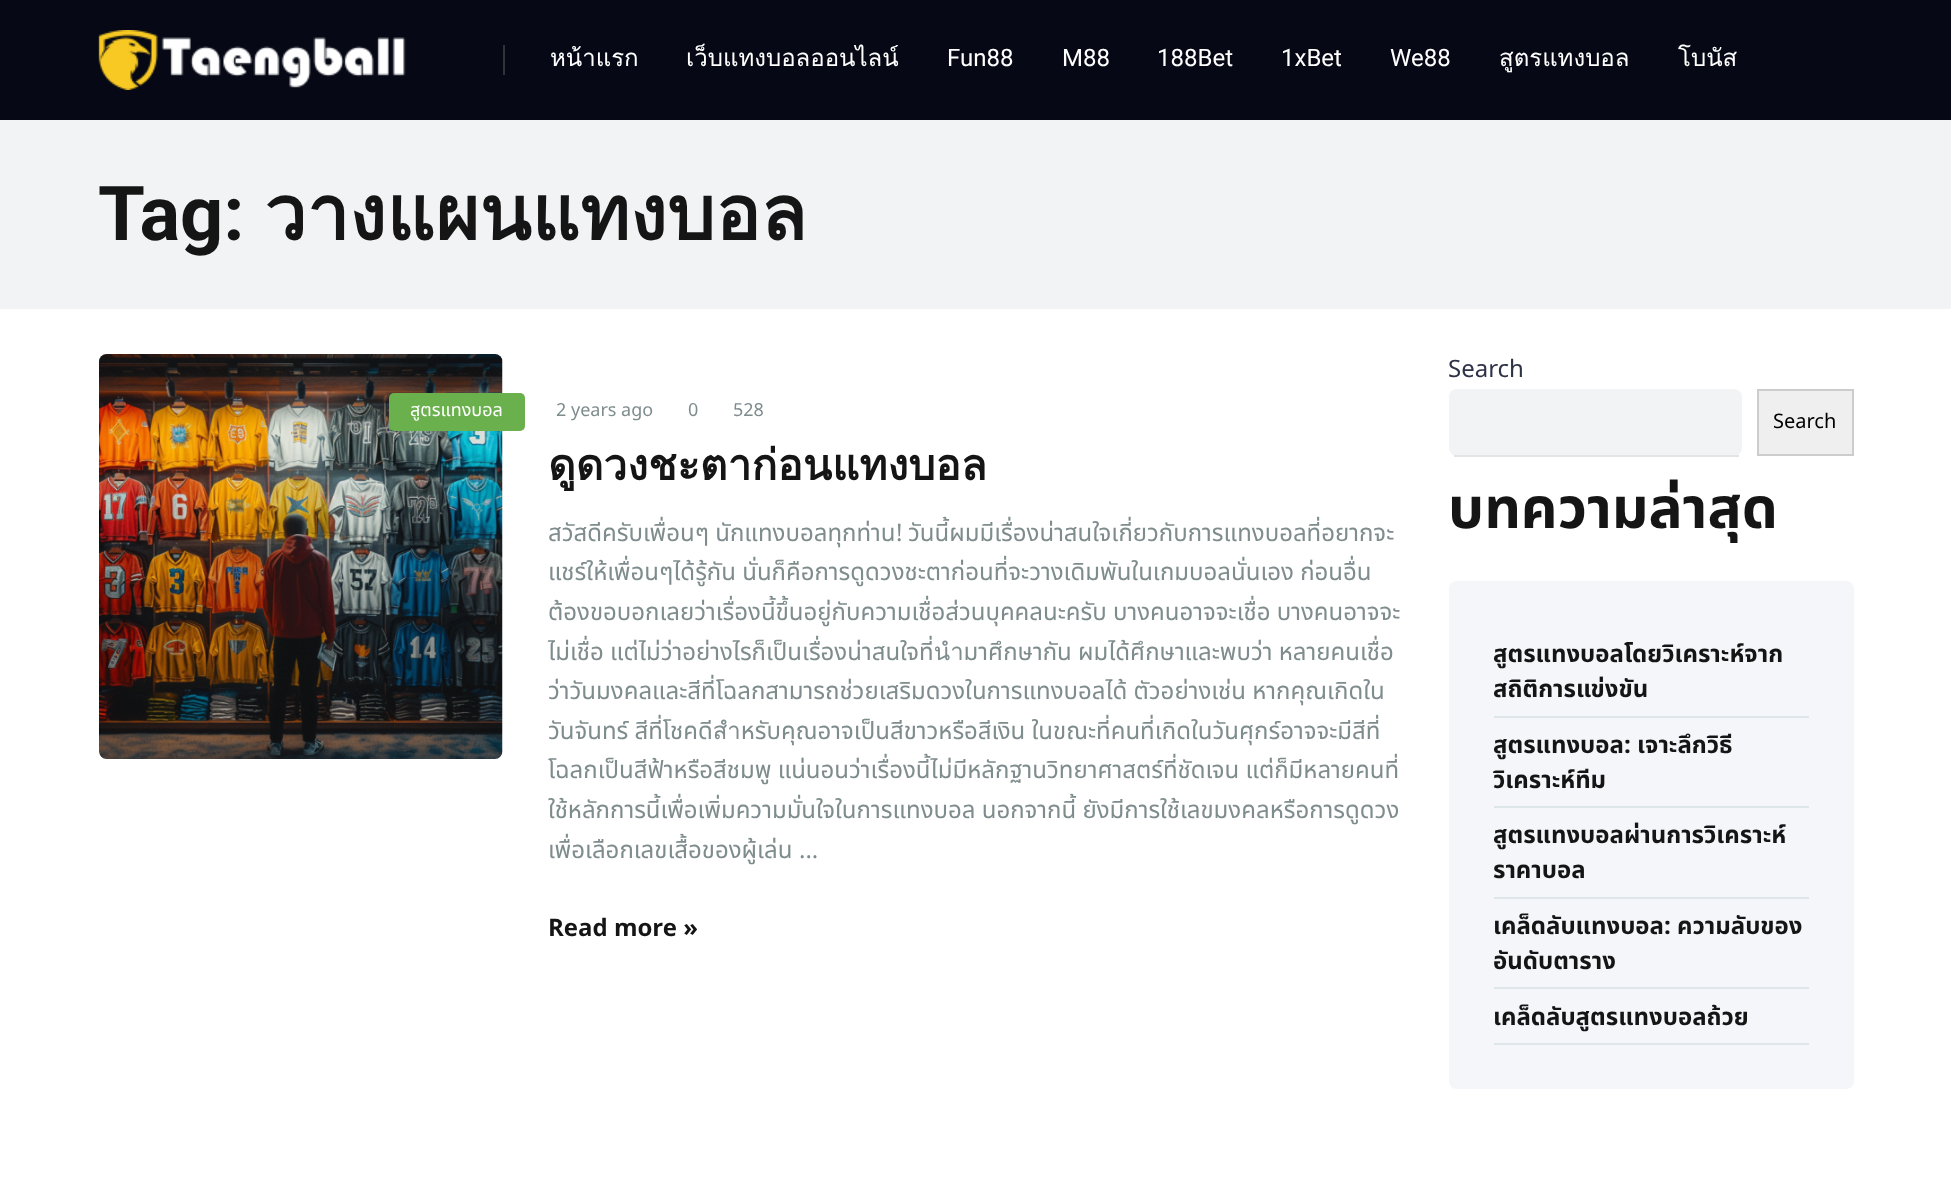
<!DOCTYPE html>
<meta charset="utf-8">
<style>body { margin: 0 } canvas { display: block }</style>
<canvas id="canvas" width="1951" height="1201"></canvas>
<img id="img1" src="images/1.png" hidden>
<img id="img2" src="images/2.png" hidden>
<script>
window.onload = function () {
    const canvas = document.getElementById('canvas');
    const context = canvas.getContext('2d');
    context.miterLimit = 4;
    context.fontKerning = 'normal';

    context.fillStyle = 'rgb(255, 255, 255)';
    context.fillRect(0, 0, 1951, 1201);
    context.fillStyle = 'rgb(6, 9, 21)';
    context.fillRect(0, 0, 1951, 120);
    context.drawImage(document.getElementById('img1'), 98, 30, 308, 60);
    context.fillStyle = 'rgb(45, 52, 54)';
    context.fillRect(503, 45, 2, 30);
    context.fillStyle = 'rgb(241, 243, 244)';
    context.fillRect(0, 120, 1951, 189);
    context.drawImage(document.getElementById('img2'), 99, 354, 404, 405);
    context.fillStyle = 'rgb(106, 176, 76)';
    context.beginPath();
    context.roundRect(389, 393, 136, 38, 5);
    context.fill();
    context.fillStyle = 'rgb(241, 243, 244)';
    context.beginPath();
    context.roundRect(1449, 389, 293, 67, 8);
    context.fill();
    context.fillStyle = 'rgb(228, 228, 228)';
    context.fillRect(1454, 455, 285, 2);
    context.fillStyle = 'rgb(239, 239, 239)';
    context.beginPath();
    context.rect(1758, 390, 95, 65);
    context.fill();
    context.strokeStyle = 'rgb(204, 204, 204)';
    context.lineWidth = 2;
    context.stroke();
    context.fillStyle = 'rgb(245, 246, 250)';
    context.beginPath();
    context.roundRect(1449, 581, 405, 508, 8);
    context.fill();
    context.fillStyle = 'rgb(223, 230, 233)';
    context.fillRect(1494, 716, 315, 2);
    context.fillRect(1494, 806, 315, 2);
    context.fillRect(1494, 897, 315, 2);
    context.fillRect(1494, 987, 315, 2);
    context.fillRect(1494, 1043, 315, 2);
    context.font = '24px Loma';
    context.fillStyle = 'rgb(255, 255, 255)';
    context.fillText('หน้าแรก', 550, 66);
    context.fillText('เว็บแทงบอลออนไลน์', 686, 66);
    context.font = '24px Roboto';
    context.fillText('Fun88', 947, 66);
    context.fillText('M88', 1062, 66);
    context.fillText('188Bet', 1157, 66);
    context.fillText('1xBet', 1281, 66);
    context.fillText('We88', 1390, 66);
    context.font = '24px Loma';
    context.fillText('สูตรแทงบอล', 1499, 66);
    context.fillText('โบนัส', 1678, 66);
    context.font = 'bold 75.75px Roboto';
    context.fillStyle = 'rgb(21, 21, 21)';
    context.fillText('Tag:', 98, 240);
    context.font = 'bold 75.75px Loma';
    context.fillText('วางแผนแทงบอล', 264, 240);
    context.font = '18px Noto Sans Thai';
    context.fillStyle = 'rgb(255, 255, 255)';
    context.fillText('สูตรแทงบอล', 410, 416);
    context.font = '18px Noto Sans';
    context.fillStyle = 'rgb(127, 140, 141)';
    context.fillText('2 years ago', 556, 416);
    context.fillText('0', 688, 416);
    context.fillText('528', 733, 416);
    context.font = 'bold 42.6px Loma';
    context.fillStyle = 'rgb(21, 21, 21)';
    context.fillText('ดูดวงชะตาก่อนแทงบอล', 548, 480);
    context.font = '24px Noto Sans Thai';
    context.fillStyle = 'rgb(127, 140, 141)';
    context.fillText('สวัสดีครับเพื่อนๆ นักแทงบอลทุกท่าน', 548, 541);
    context.font = '24px Noto Sans';
    context.fillText('!', 896, 541);
    context.font = '24px Noto Sans Thai';
    context.fillText('วันนี้ผมมีเรื่องน่าสนใจเกี่ยวกับการแทงบอลที่อยากจะ', 908, 541);
    context.fillText('แชร์ให้เพื่อนๆได้รู้กัน นั่นก็คือการดูดวงชะตาก่อนที่จะวางเดิมพันในเกมบอลนั่นเอง ก่อนอื่น', 548, 580);
    context.fillText('ต้องขอบอกเลยว่าเรื่องนี้ขึ้นอยู่กับความเชื่อส่วนบุคคลนะครับ บางคนอาจจะเชื่อ บางคนอาจจะ', 548, 620);
    context.fillText('ไม่เชื่อ แต่ไม่ว่าอย่างไรก็เป็นเรื่องน่าสนใจที่นำมาศึกษากัน ผมได้ศึกษาและพบว่า หลายคนเชื่อ', 548, 660);
    context.fillText('ว่าวันมงคลและสีที่โฉลกสามารถช่วยเสริมดวงในการแทงบอลได้ ตัวอย่างเช่น หากคุณเกิดใน', 548, 699);
    context.fillText('วันจันทร์ สีที่โชคดีสำหรับคุณอาจเป็นสีขาวหรือสีเงิน ในขณะที่คนที่เกิดในวันศุกร์อาจจะมีสีที่', 548, 739);
    context.fillText('โฉลกเป็นสีฟ้าหรือสีชมพู แน่นอนว่าเรื่องนี้ไม่มีหลักฐานวิทยาศาสตร์ที่ชัดเจน แต่ก็มีหลายคนที่', 548, 778);
    context.fillText('ใช้หลักการนี้เพื่อเพิ่มความมั่นใจในการแทงบอล นอกจากนี้ ยังมีการใช้เลขมงคลหรือการดูดวง', 548, 818);
    context.fillText('เพื่อเลือกเลขเสื้อของผู้เล่น', 548, 858);
    context.font = '24px Noto Sans';
    context.fillText('...', 799, 858);
    context.font = 'bold 24px Noto Sans';
    context.fillStyle = 'rgb(21, 21, 21)';
    context.fillText('Read more »', 548, 936);
    context.font = '24px Noto Sans';
    context.fillStyle = 'rgb(46, 50, 70)';
    context.fillText('Search', 1448, 377);
    context.font = '20px Noto Sans';
    context.fillStyle = 'rgb(0, 0, 0)';
    context.fillText('Search', 1773, 428);
    context.font = 'bold 57px Noto Sans Thai';
    context.fillStyle = 'rgb(21, 21, 21)';
    context.fillText('บทความล่าสุด', 1448, 528);
    context.font = 'bold 24px Noto Sans Thai';
    context.fillText('สูตรแทงบอลโดยวิเคราะห์จาก', 1493, 662);
    context.fillText('สถิติการแข่งขัน', 1493, 697);
    context.fillText('สูตรแทงบอล', 1493, 753);
    context.font = 'bold 24px Noto Sans';
    context.fillText(':', 1624, 753);
    context.font = 'bold 24px Noto Sans Thai';
    context.fillText('เจาะลึกวิธี', 1637, 753);
    context.fillText('วิเคราะห์ทีม', 1493, 788);
    context.fillText('สูตรแทงบอลผ่านการวิเคราะห์', 1493, 843);
    context.fillText('ราคาบอล', 1493, 878);
    context.fillText('เคล็ดลับแทงบอล', 1493, 934);
    context.font = 'bold 24px Noto Sans';
    context.fillText(':', 1664, 934);
    context.font = 'bold 24px Noto Sans Thai';
    context.fillText('ความลับของ', 1677, 934);
    context.fillText('อันดับตาราง', 1493, 969);
    context.fillText('เคล็ดลับสูตรแทงบอลถ้วย', 1493, 1025);
};
</script>
